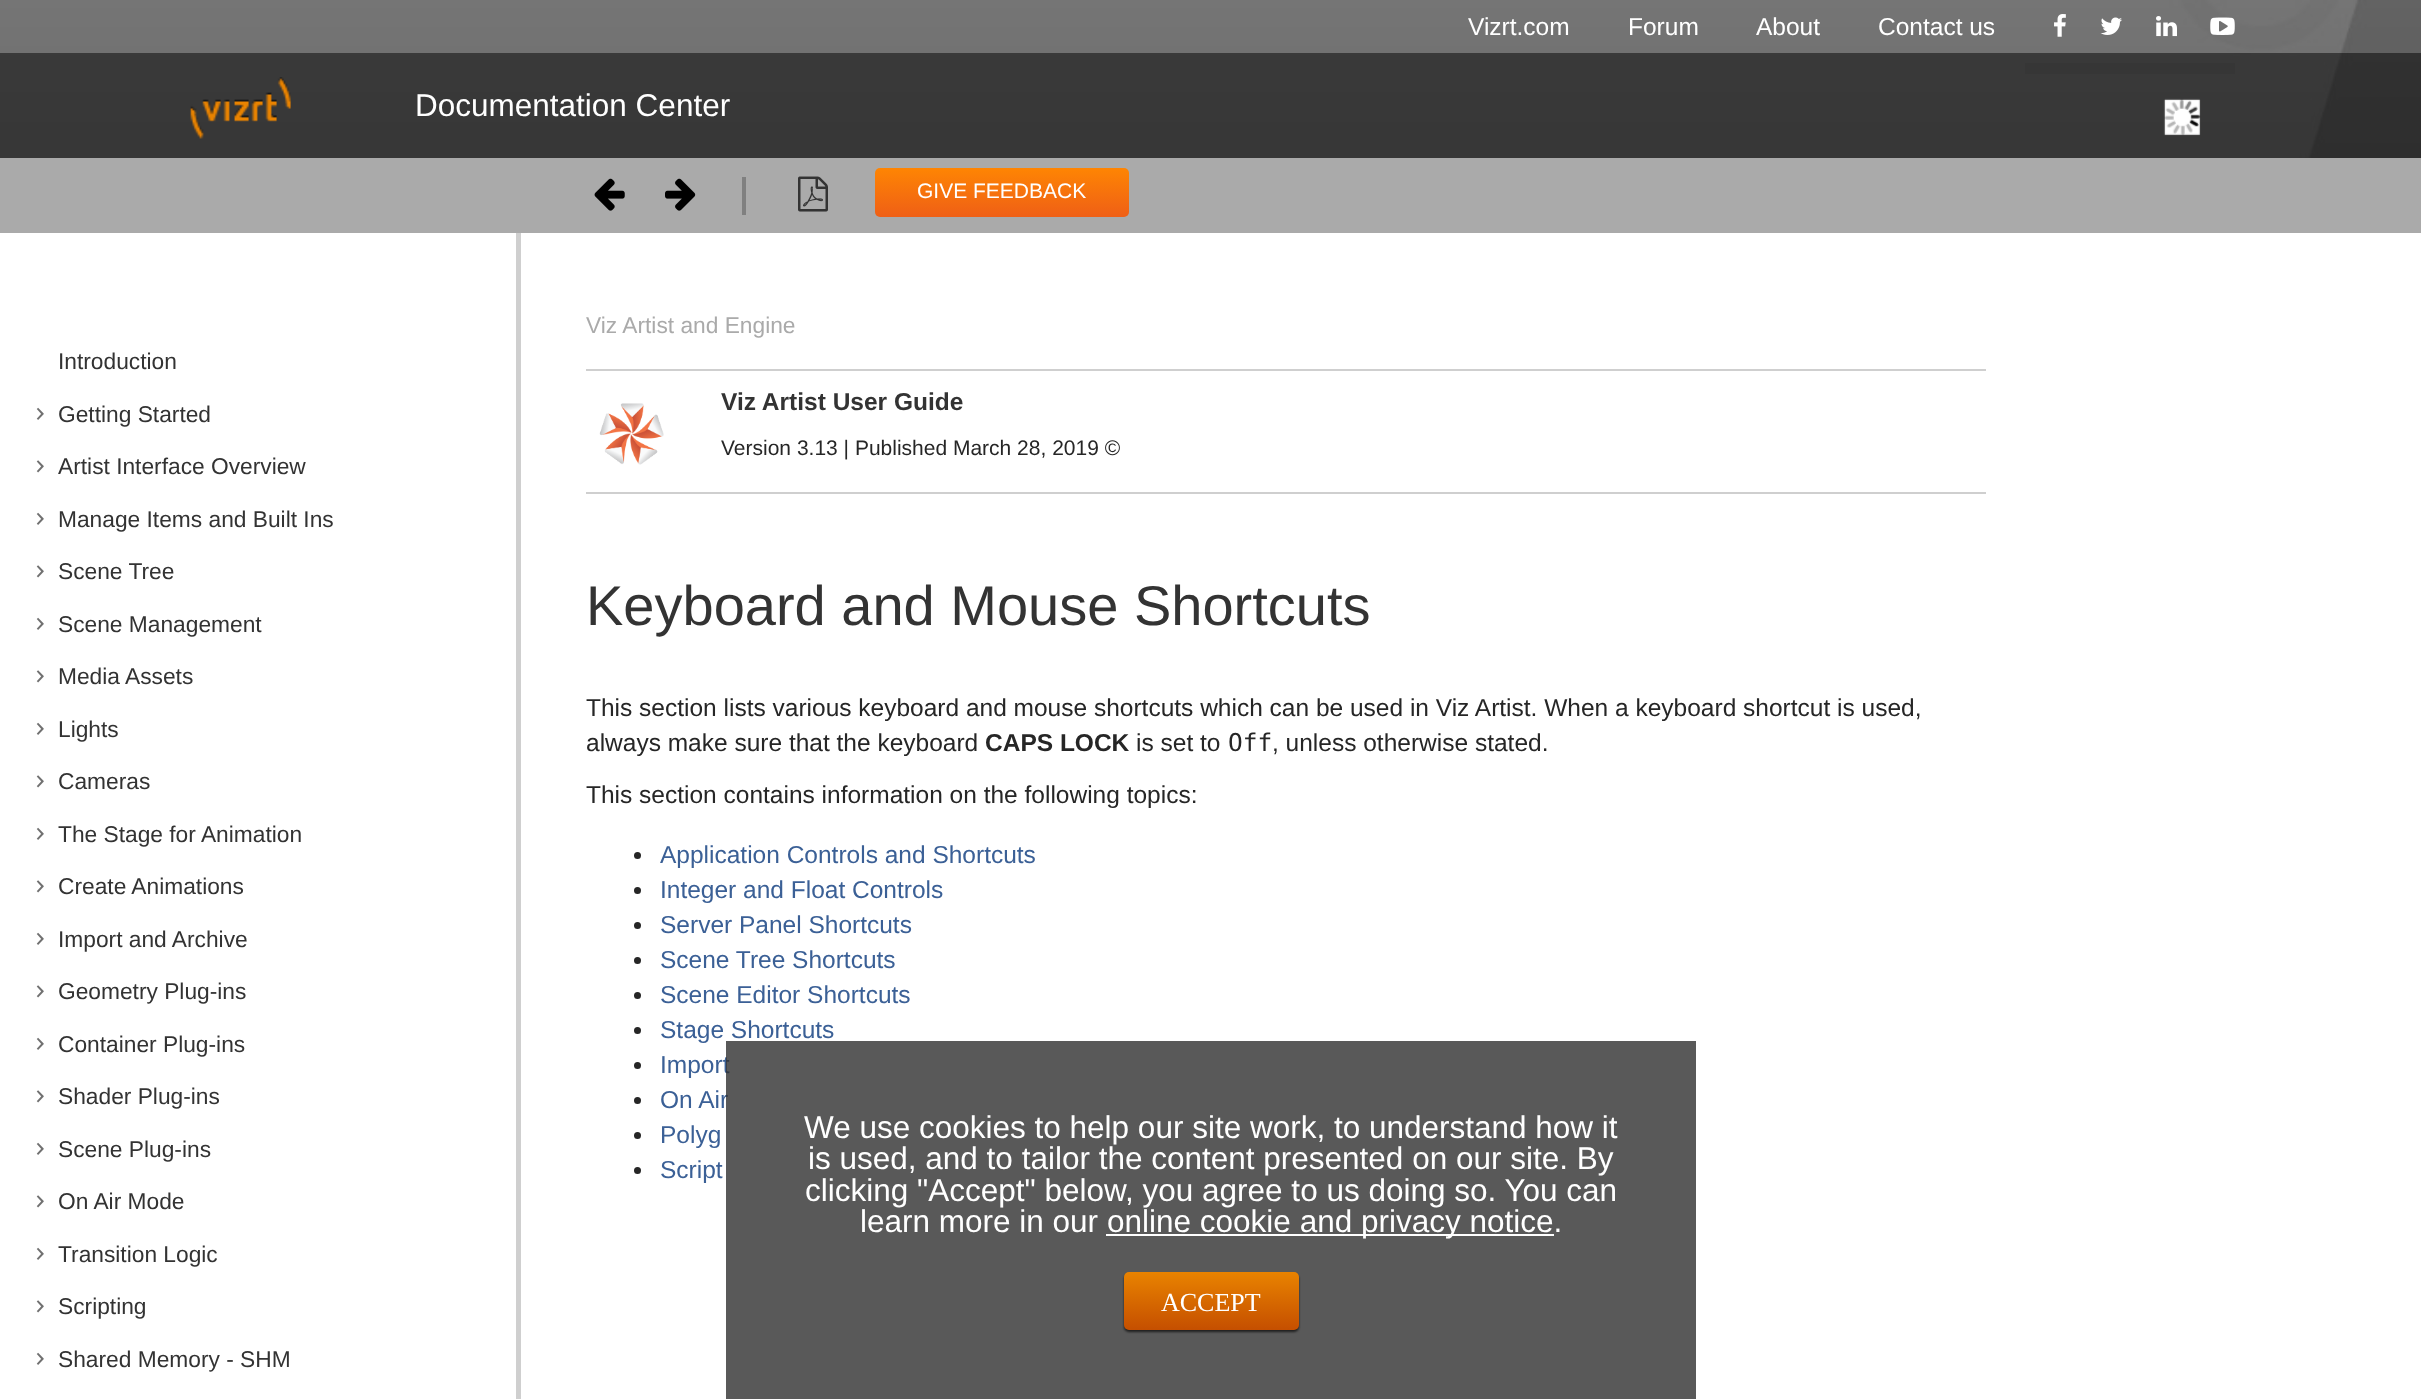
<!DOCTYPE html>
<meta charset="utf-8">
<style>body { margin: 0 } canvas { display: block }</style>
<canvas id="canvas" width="2421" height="1399"></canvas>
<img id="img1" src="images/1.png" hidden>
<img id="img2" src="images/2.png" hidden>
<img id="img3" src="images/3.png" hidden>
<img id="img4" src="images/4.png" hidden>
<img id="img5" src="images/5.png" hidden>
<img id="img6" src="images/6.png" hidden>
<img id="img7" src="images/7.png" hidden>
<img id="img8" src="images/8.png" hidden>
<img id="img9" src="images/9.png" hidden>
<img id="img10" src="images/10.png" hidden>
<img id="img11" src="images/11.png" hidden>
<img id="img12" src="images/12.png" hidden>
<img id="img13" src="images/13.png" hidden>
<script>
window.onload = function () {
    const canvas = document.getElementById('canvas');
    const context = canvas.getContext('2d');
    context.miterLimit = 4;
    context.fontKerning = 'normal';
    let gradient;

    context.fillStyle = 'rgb(255, 255, 255)';
    context.fillRect(0, 0, 2421, 1399);
    context.drawImage(document.getElementById('img1'), 0, 0, 2421, 158);
    context.fillStyle = 'rgba(0, 0, 0, 0.5)';
    context.fillRect(0, 0, 2421, 53);
    context.drawImage(document.getElementById('img2'), 2054, 14, 12, 23);
    context.drawImage(document.getElementById('img3'), 2100, 17, 22, 18);
    context.drawImage(document.getElementById('img4'), 2156, 16, 21, 21);
    context.drawImage(document.getElementById('img5'), 2210, 17, 25, 18);
    context.fillStyle = 'rgba(0, 0, 0, 0.75)';
    context.fillRect(0, 53, 2421, 105);
    context.drawImage(document.getElementById('img6'), 190, 77, 101, 62);
    context.fillStyle = 'rgb(54, 54, 54)';
    context.fillRect(2025, 63, 210, 11);
    context.drawImage(document.getElementById('img7'), 2163, 98, 38, 38);
    context.fillStyle = 'rgb(170, 170, 170)';
    context.fillRect(0, 158, 2421, 75);
    context.drawImage(document.getElementById('img8'), 36, 407, 8, 13);
    context.drawImage(document.getElementById('img9'), 36, 460, 8, 13);
    context.drawImage(document.getElementById('img8'), 36, 512, 8, 13);
    context.drawImage(document.getElementById('img9'), 36, 565, 8, 13);
    context.drawImage(document.getElementById('img8'), 36, 617, 8, 13);
    context.drawImage(document.getElementById('img9'), 36, 670, 8, 13);
    context.drawImage(document.getElementById('img8'), 36, 722, 8, 13);
    context.drawImage(document.getElementById('img9'), 36, 775, 8, 13);
    context.drawImage(document.getElementById('img8'), 36, 827, 8, 13);
    context.drawImage(document.getElementById('img9'), 36, 880, 8, 13);
    context.drawImage(document.getElementById('img8'), 36, 932, 8, 13);
    context.drawImage(document.getElementById('img9'), 36, 985, 8, 13);
    context.drawImage(document.getElementById('img8'), 36, 1037, 8, 13);
    context.drawImage(document.getElementById('img9'), 36, 1090, 8, 13);
    context.drawImage(document.getElementById('img8'), 36, 1142, 8, 13);
    context.drawImage(document.getElementById('img9'), 36, 1195, 8, 13);
    context.drawImage(document.getElementById('img8'), 36, 1247, 8, 13);
    context.drawImage(document.getElementById('img9'), 36, 1300, 8, 13);
    context.drawImage(document.getElementById('img8'), 36, 1352, 8, 13);
    context.fillStyle = 'rgb(207, 207, 207)';
    context.fillRect(516, 233, 5, 1166);
    context.drawImage(document.getElementById('img10'), 594, 178, 31, 33);
    context.drawImage(document.getElementById('img11'), 665, 178, 31, 33);
    context.fillStyle = 'rgb(128, 128, 128)';
    context.fillRect(742, 177, 4, 38);
    context.drawImage(document.getElementById('img12'), 798, 176, 30, 36);
    gradient = context.createLinearGradient(1002, 168, 1002, 217);
    gradient.addColorStop(0, 'rgb(254, 133, 3)');
    gradient.addColorStop(1, 'rgb(239, 95, 22)');
    context.fillStyle = gradient;
    context.beginPath();
    context.roundRect(875, 168, 254, 49, 5);
    context.fill();
    context.fillStyle = 'rgb(207, 207, 207)';
    context.fillRect(586, 369, 1400, 2);
    context.fillRect(586, 492, 1400, 2);
    context.drawImage(document.getElementById('img13'), 599, 403, 65, 62);
    context.fillStyle = 'rgb(38, 38, 38)';
    context.beginPath();
    context.arc(637.5, 855.5, 3.5, 0, 2 * Math.PI);
    context.fill();
    context.beginPath();
    context.arc(637.5, 890.5, 3.5, 0, 2 * Math.PI);
    context.fill();
    context.beginPath();
    context.arc(637.5, 925.5, 3.5, 0, 2 * Math.PI);
    context.fill();
    context.beginPath();
    context.arc(637.5, 960.5, 3.5, 0, 2 * Math.PI);
    context.fill();
    context.beginPath();
    context.arc(637.5, 995.5, 3.5, 0, 2 * Math.PI);
    context.fill();
    context.beginPath();
    context.arc(637.5, 1030.5, 3.5, 0, 2 * Math.PI);
    context.fill();
    context.beginPath();
    context.arc(637.5, 1065.5, 3.5, 0, 2 * Math.PI);
    context.fill();
    context.beginPath();
    context.arc(637.5, 1100.5, 3.5, 0, 2 * Math.PI);
    context.fill();
    context.beginPath();
    context.arc(637.5, 1135.5, 3.5, 0, 2 * Math.PI);
    context.fill();
    context.beginPath();
    context.arc(637.5, 1170.5, 3.5, 0, 2 * Math.PI);
    context.fill();
    context.font = '24.5px Liberation Sans';
    context.fillStyle = 'rgb(255, 255, 255)';
    context.fillText('Vizrt.com', 1468, 35);
    context.fillText('Forum', 1628, 35);
    context.fillText('About', 1756, 35);
    context.fillText('Contact us', 1878, 35);
    context.font = '31.5px Liberation Sans';
    context.fillText('Documentation Center', 415, 116);
    context.font = '22.75px Liberation Sans';
    context.fillStyle = 'rgb(51, 51, 51)';
    context.fillText('Introduction', 58, 369);
    context.fillText('Getting Started', 58, 422);
    context.fillText('Artist Interface Overview', 58, 474);
    context.fillText('Manage Items and Built Ins', 58, 527);
    context.fillText('Scene Tree', 58, 579);
    context.fillText('Scene Management', 58, 632);
    context.fillText('Media Assets', 58, 684);
    context.fillText('Lights', 58, 737);
    context.fillText('Cameras', 58, 789);
    context.fillText('The Stage for Animation', 58, 842);
    context.fillText('Create Animations', 58, 894);
    context.fillText('Import and Archive', 58, 947);
    context.fillText('Geometry Plug-ins', 58, 999);
    context.fillText('Container Plug-ins', 58, 1052);
    context.fillText('Shader Plug-ins', 58, 1104);
    context.fillText('Scene Plug-ins', 58, 1157);
    context.fillText('On Air Mode', 58, 1209);
    context.fillText('Transition Logic', 58, 1262);
    context.fillText('Scripting', 58, 1314);
    context.fillText('Shared Memory - SHM', 58, 1367);
    context.font = '21px Liberation Sans';
    context.fillStyle = 'rgb(255, 255, 255)';
    context.fillText('GIVE FEEDBACK', 917, 198);
    context.font = '22.75px Liberation Sans';
    context.fillStyle = 'rgb(170, 170, 170)';
    context.fillText('Viz Artist and Engine', 586, 333);
    context.font = 'bold 24.5px Liberation Sans';
    context.fillStyle = 'rgb(51, 51, 51)';
    context.fillText('Viz Artist User Guide', 721, 410);
    context.font = '21px Liberation Sans';
    context.fillStyle = 'rgb(38, 38, 38)';
    context.fillText('Version 3.13 | Published March 28, 2019 ©', 721, 455);
    context.font = '56px Liberation Sans';
    context.fillStyle = 'rgb(51, 51, 51)';
    context.fillText('Keyboard and Mouse Shortcuts', 586, 625);
    context.font = '24.5px Liberation Sans';
    context.fillStyle = 'rgb(38, 38, 38)';
    context.fillText('This section lists various keyboard and mouse shortcuts which can be used in Viz Artist. When a keyboard shortcut is used,', 586, 716);
    context.fillText('always make sure that the keyboard', 586, 751);
    context.font = 'bold 24.5px Liberation Sans';
    context.fillText('CAPS LOCK', 985, 751);
    context.font = '24.5px Liberation Sans';
    context.fillText('is set to', 1136, 751);
    context.font = '24.5px DejaVu Sans Mono';
    context.fillText('Off', 1228, 751);
    context.font = '24.5px Liberation Sans';
    context.fillText(', unless otherwise stated.', 1272, 751);
    context.fillText('This section contains information on the following topics:', 586, 803);
    context.fillStyle = 'rgb(59, 96, 150)';
    context.fillText('Application Controls and Shortcuts', 660, 863);
    context.fillText('Integer and Float Controls', 660, 898);
    context.fillText('Server Panel Shortcuts', 660, 933);
    context.fillText('Scene Tree Shortcuts', 660, 968);
    context.fillText('Scene Editor Shortcuts', 660, 1003);
    context.fillText('Stage Shortcuts', 660, 1038);
    context.fillText('Import', 660, 1073);
    context.fillText('On Air', 660, 1108);
    context.fillText('Polyg', 660, 1143);
    context.fillText('Script', 660, 1178);
    context.fillStyle = 'rgba(47, 47, 47, 0.8)';
    context.fillRect(726, 1041, 970, 358);
    context.font = '31.5px Liberation Sans';
    context.fillStyle = 'rgb(255, 255, 255)';
    context.fillText('We use cookies to help our site work, to understand how it', 804, 1138);
    context.fillText('is used, and to tailor the content presented on our site. By', 808, 1169);
    context.fillText('clicking "Accept" below, you agree to us doing so. You can', 805, 1201);
    context.fillText('learn more in our', 860, 1232);
    context.fillRect(1106, 1234, 448, 2);
    context.fillText('online cookie and privacy notice.', 1107, 1232);
    context.fillStyle = 'rgba(0, 0, 0, 0.65)';
    context.filter = 'blur(1px)';
    context.beginPath();
    context.roundRect(1124, 1274, 175, 58, 5);
    context.fill();
    context.filter = 'none';
    gradient = context.createLinearGradient(1211, 1272, 1211, 1330);
    gradient.addColorStop(0, 'rgb(233, 131, 0)');
    gradient.addColorStop(1, 'rgb(197, 79, 0)');
    context.fillStyle = gradient;
    context.beginPath();
    context.roundRect(1124, 1272, 175, 58, 5);
    context.fill();
    context.font = '26px Liberation Serif';
    context.fillStyle = 'rgb(255, 255, 255)';
    context.fillText('ACCEPT', 1161, 1311);
};
</script>
